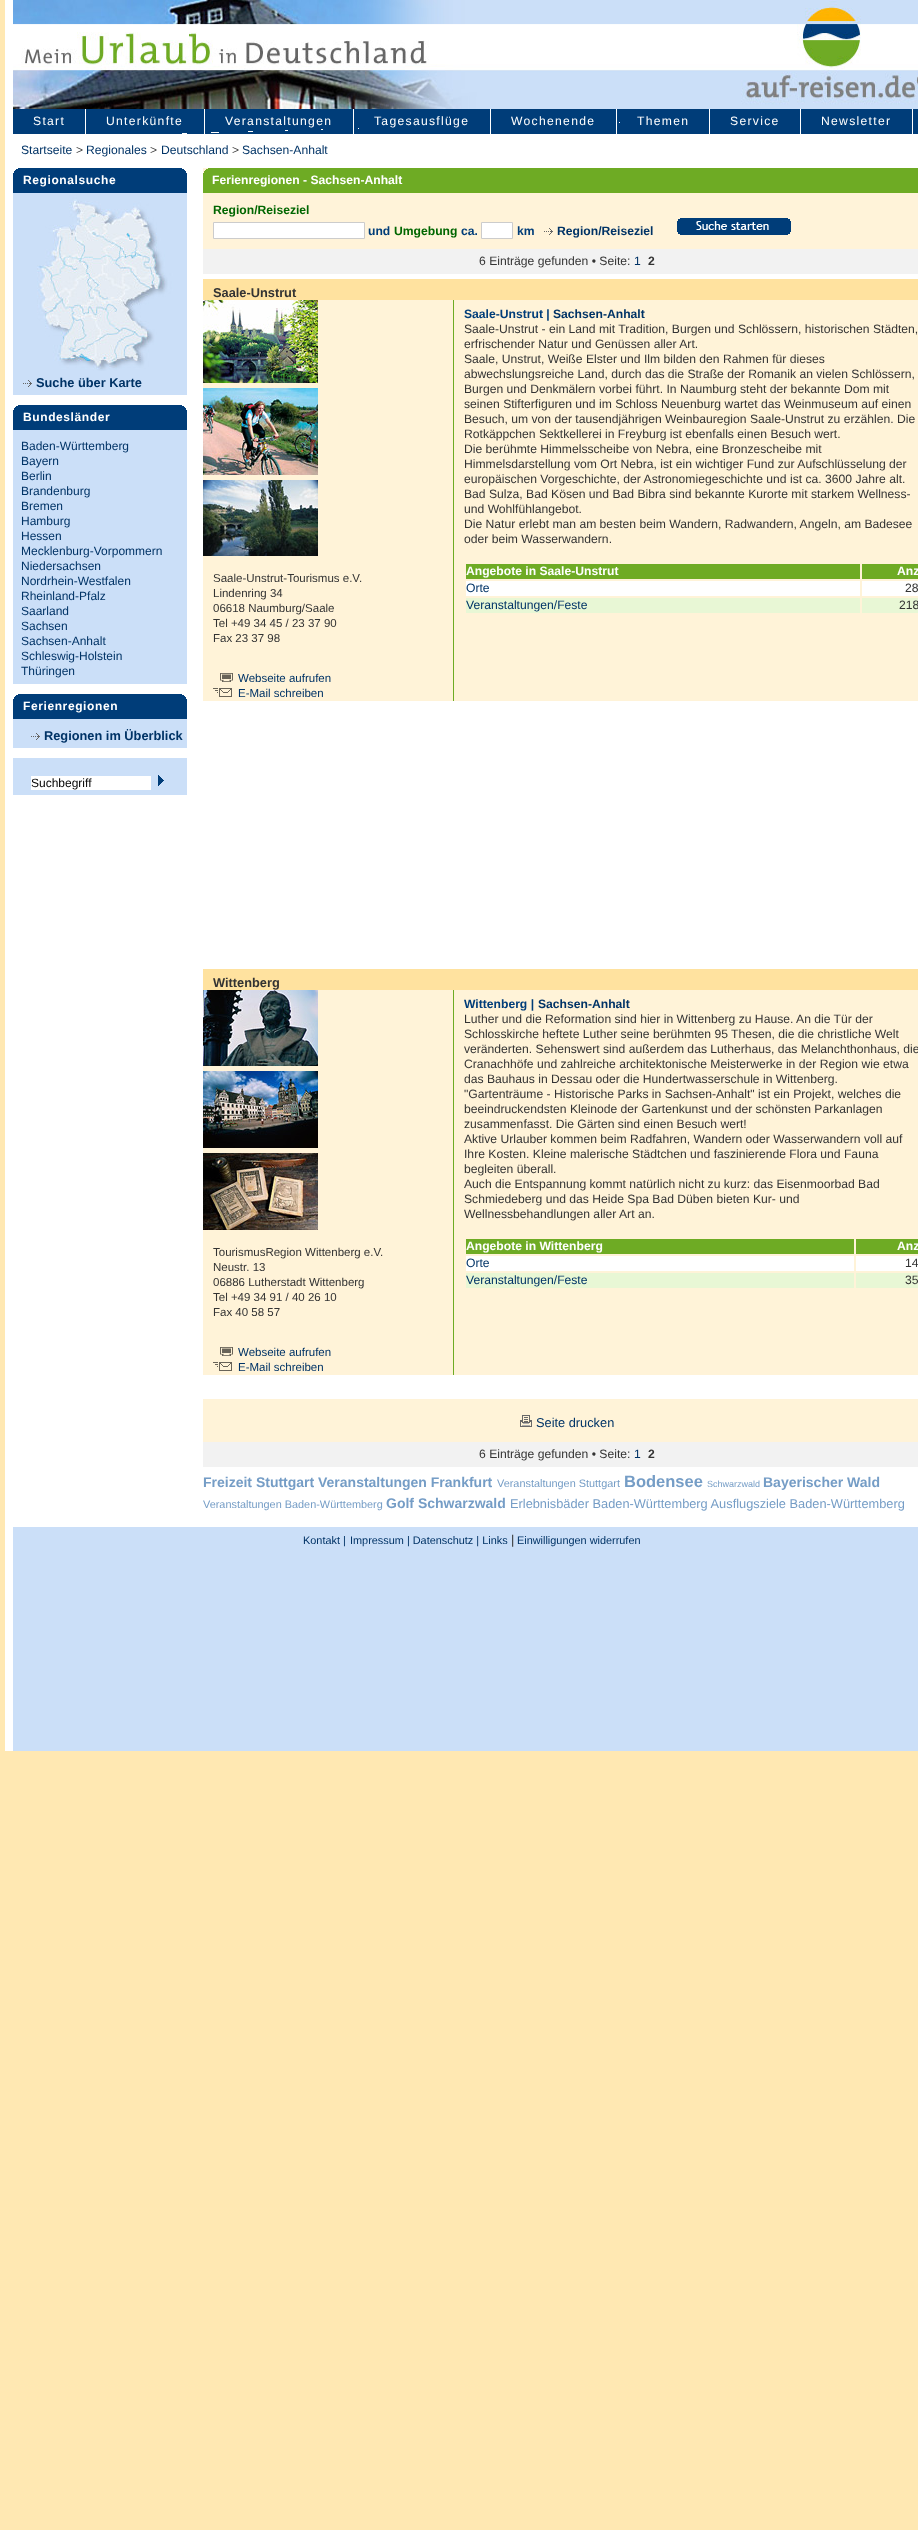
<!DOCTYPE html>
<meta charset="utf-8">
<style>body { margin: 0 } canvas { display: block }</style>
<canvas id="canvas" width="918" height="2530"></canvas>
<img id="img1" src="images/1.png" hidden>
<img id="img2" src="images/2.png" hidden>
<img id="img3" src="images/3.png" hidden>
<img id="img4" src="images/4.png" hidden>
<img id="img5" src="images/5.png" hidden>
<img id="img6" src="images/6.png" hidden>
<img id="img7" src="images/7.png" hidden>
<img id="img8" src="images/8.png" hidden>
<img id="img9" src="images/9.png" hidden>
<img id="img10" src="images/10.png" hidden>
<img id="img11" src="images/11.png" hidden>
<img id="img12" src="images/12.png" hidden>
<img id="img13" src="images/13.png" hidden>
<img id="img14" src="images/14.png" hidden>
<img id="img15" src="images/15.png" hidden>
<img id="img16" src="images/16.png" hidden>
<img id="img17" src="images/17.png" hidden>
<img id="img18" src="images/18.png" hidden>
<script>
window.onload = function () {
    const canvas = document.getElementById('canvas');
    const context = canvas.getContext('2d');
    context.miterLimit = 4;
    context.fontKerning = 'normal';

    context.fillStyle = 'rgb(255, 232, 178)';
    context.fillRect(0, 0, 918, 2530);
    context.fillStyle = 'rgb(255, 255, 255)';
    context.fillRect(5, 0, 913, 1751);
    context.drawImage(document.getElementById('img1'), 13, 0, 905, 109);
    context.fillStyle = 'rgb(0, 61, 121)';
    context.fillRect(13, 109, 905, 25);
    context.drawImage(document.getElementById('img2'), 182, 122, 438, 12);
    context.fillStyle = 'rgb(255, 255, 255)';
    context.fillRect(85, 109, 1, 25);
    context.fillRect(204, 109, 1, 25);
    context.fillRect(353, 109, 1, 25);
    context.fillRect(490, 109, 1, 25);
    context.fillRect(616, 109, 1, 25);
    context.fillRect(709, 109, 1, 25);
    context.fillRect(800, 109, 1, 25);
    context.fillRect(912, 109, 1, 25);
    context.fillStyle = 'rgb(203, 223, 248)';
    context.fillRect(13, 371, 174, 24);
    context.drawImage(document.getElementById('img3'), 13, 168, 174, 25);
    context.drawImage(document.getElementById('img4'), 13, 193, 174, 178);
    context.drawImage(document.getElementById('img5'), 23, 380, 9, 7);
    context.drawImage(document.getElementById('img3'), 13, 405, 174, 25);
    context.fillRect(13, 430, 174, 254);
    context.drawImage(document.getElementById('img3'), 13, 694, 174, 25);
    context.fillRect(13, 719, 174, 29);
    context.drawImage(document.getElementById('img5'), 31, 733, 9, 7);
    context.fillRect(13, 758, 174, 37);
    context.fillStyle = 'rgb(255, 255, 255)';
    context.fillRect(31, 776, 120, 14);
    context.drawImage(document.getElementById('img6'), 158, 775, 6, 11);
    context.fillStyle = 'rgb(255, 243, 217)';
    context.fillRect(203, 168, 715, 81);
    context.drawImage(document.getElementById('img7'), 203, 168, 715, 25);
    context.fillStyle = 'rgb(255, 255, 255)';
    context.beginPath();
    context.rect(213.5, 222.5, 151, 16);
    context.fill();
    context.strokeStyle = 'rgb(204, 204, 204)';
    context.stroke();
    context.beginPath();
    context.rect(481.5, 222.5, 31, 16);
    context.fill();
    context.stroke();
    context.drawImage(document.getElementById('img8'), 544, 228, 9, 7);
    context.drawImage(document.getElementById('img9'), 677, 218, 114, 17);
    context.fillStyle = 'rgb(242, 242, 242)';
    context.fillRect(203, 249, 715, 25);
    context.fillStyle = 'rgb(255, 226, 159)';
    context.fillRect(203, 279, 715, 21);
    context.fillStyle = 'rgb(255, 243, 216)';
    context.fillRect(454, 300, 464, 401);
    context.fillStyle = 'rgb(110, 171, 36)';
    context.fillRect(453, 300, 1, 401);
    context.fillRect(466, 564, 394, 15);
    context.fillRect(862, 564, 56, 15);
    context.fillStyle = 'rgb(255, 255, 255)';
    context.fillRect(466, 581, 394, 15);
    context.fillRect(862, 581, 56, 15);
    context.fillStyle = 'rgb(232, 247, 213)';
    context.fillRect(466, 598, 394, 15);
    context.fillRect(862, 598, 56, 15);
    context.fillStyle = 'rgb(255, 243, 216)';
    context.fillRect(203, 300, 250, 401);
    context.drawImage(document.getElementById('img10'), 203, 300, 115, 83);
    context.drawImage(document.getElementById('img11'), 203, 388, 115, 87);
    context.drawImage(document.getElementById('img12'), 203, 480, 115, 76);
    context.drawImage(document.getElementById('img13'), 220, 673, 13, 9);
    context.drawImage(document.getElementById('img14'), 213, 688, 19, 9);
    context.fillStyle = 'rgb(255, 226, 159)';
    context.fillRect(203, 969, 715, 21);
    context.fillStyle = 'rgb(255, 243, 216)';
    context.fillRect(454, 990, 464, 385);
    context.fillStyle = 'rgb(110, 171, 36)';
    context.fillRect(453, 990, 1, 385);
    context.fillRect(466, 1239, 388, 15);
    context.fillRect(856, 1239, 62, 15);
    context.fillStyle = 'rgb(255, 255, 255)';
    context.fillRect(466, 1256, 388, 15);
    context.fillRect(856, 1256, 62, 15);
    context.fillStyle = 'rgb(232, 247, 213)';
    context.fillRect(466, 1273, 388, 15);
    context.fillRect(856, 1273, 62, 15);
    context.fillStyle = 'rgb(255, 243, 216)';
    context.fillRect(203, 990, 250, 385);
    context.drawImage(document.getElementById('img15'), 203, 990, 115, 76);
    context.drawImage(document.getElementById('img16'), 203, 1071, 115, 77);
    context.drawImage(document.getElementById('img17'), 203, 1153, 115, 77);
    context.drawImage(document.getElementById('img13'), 220, 1347, 13, 9);
    context.drawImage(document.getElementById('img14'), 213, 1362, 19, 9);
    context.fillRect(203, 1399, 715, 43);
    context.drawImage(document.getElementById('img18'), 520, 1415, 12, 12);
    context.fillStyle = 'rgb(242, 242, 242)';
    context.fillRect(203, 1442, 715, 25);
    context.fillStyle = 'rgb(203, 223, 248)';
    context.fillRect(13, 1527, 905, 224);
    context.letterSpacing = '1.3px';
    context.font = '12.15px Liberation Sans';
    context.fillStyle = 'rgb(255, 255, 255)';
    context.fillText('Start', 33, 125);
    context.fillText('Unterkünfte', 106, 125);
    context.fillText('Veranstaltungen', 225, 125);
    context.fillText('Tagesausflüge', 374, 125);
    context.fillText('Wochenende', 511, 125);
    context.fillText('Themen', 637, 125);
    context.fillText('Service', 730, 125);
    context.fillText('Newsletter', 821, 125);
    context.letterSpacing = '0px';
    context.fillStyle = 'rgb(0, 51, 102)';
    context.fillText('Startseite', 21, 154);
    context.fillStyle = 'rgb(51, 51, 51)';
    context.fillText('>', 76, 154);
    context.fillStyle = 'rgb(0, 51, 102)';
    context.fillText('Regionales', 86, 154);
    context.fillStyle = 'rgb(51, 51, 51)';
    context.fillText('>', 150, 154);
    context.fillStyle = 'rgb(0, 51, 102)';
    context.fillText('Deutschland', 161, 154);
    context.fillStyle = 'rgb(51, 51, 51)';
    context.fillText('>', 232, 154);
    context.fillStyle = 'rgb(0, 51, 102)';
    context.fillText('Sachsen-Anhalt', 242, 154);
    context.letterSpacing = '0.6px';
    context.font = 'bold 12px Liberation Sans';
    context.fillStyle = 'rgb(255, 255, 255)';
    context.fillText('Regionalsuche', 23, 184);
    context.letterSpacing = '0px';
    context.font = 'bold 12.8px Liberation Sans';
    context.fillStyle = 'rgb(0, 51, 102)';
    context.fillText('Suche über Karte', 36, 387);
    context.letterSpacing = '0.6px';
    context.font = 'bold 12px Liberation Sans';
    context.fillStyle = 'rgb(255, 255, 255)';
    context.fillText('Bundesländer', 23, 421);
    context.letterSpacing = '0px';
    context.font = '12px Liberation Sans';
    context.fillStyle = 'rgb(0, 51, 102)';
    context.fillText('Baden-Württemberg', 21, 450);
    context.fillText('Bayern', 21, 465);
    context.fillText('Berlin', 21, 480);
    context.fillText('Brandenburg', 21, 495);
    context.fillText('Bremen', 21, 510);
    context.fillText('Hamburg', 21, 525);
    context.fillText('Hessen', 21, 540);
    context.fillText('Mecklenburg-Vorpommern', 21, 555);
    context.fillText('Niedersachsen', 21, 570);
    context.fillText('Nordrhein-Westfalen', 21, 585);
    context.fillText('Rheinland-Pfalz', 21, 600);
    context.fillText('Saarland', 21, 615);
    context.fillText('Sachsen', 21, 630);
    context.fillText('Sachsen-Anhalt', 21, 645);
    context.fillText('Schleswig-Holstein', 21, 660);
    context.fillText('Thüringen', 21, 675);
    context.letterSpacing = '0.6px';
    context.font = 'bold 12px Liberation Sans';
    context.fillStyle = 'rgb(255, 255, 255)';
    context.fillText('Ferienregionen', 23, 710);
    context.letterSpacing = '0px';
    context.font = 'bold 12.8px Liberation Sans';
    context.fillStyle = 'rgb(0, 51, 102)';
    context.fillText('Regionen im Überblick', 44, 740);
    context.font = '12px Liberation Sans';
    context.fillStyle = 'rgb(0, 0, 0)';
    context.fillText('Suchbegriff', 31, 787);
    context.font = 'bold 12.15px Liberation Sans';
    context.fillStyle = 'rgb(255, 255, 255)';
    context.fillText('Ferienregionen - Sachsen-Anhalt', 212, 184);
    context.fillStyle = 'rgb(0, 102, 0)';
    context.fillText('Region/Reiseziel', 213, 214);
    context.fillStyle = 'rgb(0, 61, 121)';
    context.fillText('und', 368, 235);
    context.fillStyle = 'rgb(0, 102, 0)';
    context.fillText('Umgebung', 394, 235);
    context.fillStyle = 'rgb(0, 61, 121)';
    context.fillText('ca.', 461, 235);
    context.fillText('km', 517, 235);
    context.fillStyle = 'rgb(0, 51, 102)';
    context.fillText('Region/Reiseziel', 557, 235);
    context.font = '12.15px Liberation Sans';
    context.fillStyle = 'rgb(51, 51, 51)';
    context.fillText('6 Einträge gefunden • Seite:', 479, 265);
    context.fillStyle = 'rgb(0, 51, 102)';
    context.fillText('1', 634, 265);
    context.font = 'bold 12.15px Liberation Sans';
    context.fillStyle = 'rgb(51, 51, 51)';
    context.fillText('2', 648, 265);
    context.font = 'bold 12.8px Liberation Sans';
    context.fillText('Saale-Unstrut', 213, 297);
    context.font = 'bold 12.15px Liberation Sans';
    context.fillStyle = 'rgb(0, 61, 121)';
    context.fillText('Saale-Unstrut |', 464, 318);
    context.fillStyle = 'rgb(0, 51, 102)';
    context.fillText('Sachsen-Anhalt', 553, 318);
    context.font = '12.15px Liberation Sans';
    context.fillStyle = 'rgb(51, 51, 51)';
    context.fillText('Saale-Unstrut - ein Land mit Tradition, Burgen und Schlössern, historischen Städten,', 464, 333);
    context.fillText('erfrischender Natur und Genüssen aller Art.', 464, 348);
    context.fillText('Saale, Unstrut, Weiße Elster und Ilm bilden den Rahmen für dieses', 464, 363);
    context.fillText('abwechslungsreiche Land, durch das die Straße der Romanik an vielen Schlössern,', 464, 378);
    context.fillText('Burgen und Denkmälern vorbei führt. In Naumburg steht der bekannte Dom mit', 464, 393);
    context.fillText('seinen Stifterfiguren und im Schloss Neuenburg wartet das Weinmuseum auf einen', 464, 408);
    context.fillText('Besuch, um von der tausendjährigen Weinbauregion Saale-Unstrut zu erzählen. Die', 464, 423);
    context.fillText('Rotkäppchen Sektkellerei in Freyburg ist ebenfalls einen Besuch wert.', 464, 438);
    context.fillText('Die berühmte Himmelsscheibe von Nebra, eine Bronzescheibe mit', 464, 453);
    context.fillText('Himmelsdarstellung vom Ort Nebra, ist ein wichtiger Fund zur Aufschlüsselung der', 464, 468);
    context.fillText('europäischen Vorgeschichte, der Astronomiegeschichte und ist ca. 3600 Jahre alt.', 464, 483);
    context.fillText('Bad Sulza, Bad Kösen und Bad Bibra sind bekannte Kurorte mit starkem Wellness-', 464, 498);
    context.fillText('und Wohlfühlangebot.', 464, 513);
    context.fillText('Die Natur erlebt man am besten beim Wandern, Radwandern, Angeln, am Badesee', 464, 528);
    context.fillText('oder beim Wasserwandern.', 464, 543);
    context.font = 'bold 12.15px Liberation Sans';
    context.fillStyle = 'rgb(255, 255, 255)';
    context.fillText('Angebote in Saale-Unstrut', 466, 575);
    context.fillText('Anz', 897, 575);
    context.font = '12.15px Liberation Sans';
    context.fillStyle = 'rgb(0, 51, 102)';
    context.fillText('Orte', 466, 592);
    context.fillStyle = 'rgb(51, 51, 51)';
    context.fillText('28', 905, 592);
    context.fillStyle = 'rgb(0, 51, 102)';
    context.fillText('Veranstaltungen/Feste', 466, 609);
    context.fillStyle = 'rgb(51, 51, 51)';
    context.fillText('218', 899, 609);
    context.font = '11.5px Liberation Sans';
    context.fillText('Saale-Unstrut-Tourismus e.V.', 213, 582);
    context.fillText('Lindenring 34', 213, 597);
    context.fillText('06618 Naumburg/Saale', 213, 612);
    context.fillText('Tel +49 34 45 / 23 37 90', 213, 627);
    context.fillText('Fax 23 37 98', 213, 642);
    context.fillStyle = 'rgb(0, 51, 102)';
    context.fillText('Webseite aufrufen', 238, 682);
    context.fillText('E-Mail schreiben', 238, 697);
    context.font = 'bold 12.8px Liberation Sans';
    context.fillStyle = 'rgb(51, 51, 51)';
    context.fillText('Wittenberg', 213, 987);
    context.font = 'bold 12.15px Liberation Sans';
    context.fillStyle = 'rgb(0, 61, 121)';
    context.fillText('Wittenberg |', 464, 1008);
    context.fillStyle = 'rgb(0, 51, 102)';
    context.fillText('Sachsen-Anhalt', 538, 1008);
    context.font = '12.15px Liberation Sans';
    context.fillStyle = 'rgb(51, 51, 51)';
    context.fillText('Luther und die Reformation sind hier in Wittenberg zu Hause. An die Tür der', 464, 1023);
    context.fillText('Schlosskirche heftete Luther seine berühmten 95 Thesen, die die christliche Welt', 464, 1038);
    context.fillText('veränderten. Sehenswert sind außerdem das Lutherhaus, das Melanchthonhaus, die', 464, 1053);
    context.fillText('Cranachhöfe und zahlreiche architektonische Meisterwerke in der Region wie etwa', 464, 1068);
    context.fillText('das Bauhaus in Dessau oder die Hundertwasserschule in Wittenberg.', 464, 1083);
    context.fillText('"Gartenträume - Historische Parks in Sachsen-Anhalt" ist ein Projekt, welches die', 464, 1098);
    context.fillText('beeindruckendsten Kleinode der Gartenkunst und der schönsten Parkanlagen', 464, 1113);
    context.fillText('zusammenfasst. Die Gärten sind einen Besuch wert!', 464, 1128);
    context.fillText('Aktive Urlauber kommen beim Radfahren, Wandern oder Wasserwandern voll auf', 464, 1143);
    context.fillText('Ihre Kosten. Kleine malerische Städtchen und faszinierende Flora und Fauna', 464, 1158);
    context.fillText('begleiten überall.', 464, 1173);
    context.fillText('Auch die Entspannung kommt natürlich nicht zu kurz: das Eisenmoorbad Bad', 464, 1188);
    context.fillText('Schmiedeberg und das Heide Spa Bad Düben bieten Kur- und', 464, 1203);
    context.fillText('Wellnessbehandlungen aller Art an.', 464, 1218);
    context.font = 'bold 12.15px Liberation Sans';
    context.fillStyle = 'rgb(255, 255, 255)';
    context.fillText('Angebote in Wittenberg', 466, 1250);
    context.fillText('Anz', 897, 1250);
    context.font = '12.15px Liberation Sans';
    context.fillStyle = 'rgb(0, 51, 102)';
    context.fillText('Orte', 466, 1267);
    context.fillStyle = 'rgb(51, 51, 51)';
    context.fillText('14', 905, 1267);
    context.fillStyle = 'rgb(0, 51, 102)';
    context.fillText('Veranstaltungen/Feste', 466, 1284);
    context.fillStyle = 'rgb(51, 51, 51)';
    context.fillText('35', 905, 1284);
    context.font = '11.5px Liberation Sans';
    context.fillText('TourismusRegion Wittenberg e.V.', 213, 1256);
    context.fillText('Neustr. 13', 213, 1271);
    context.fillText('06886 Lutherstadt Wittenberg', 213, 1286);
    context.fillText('Tel +49 34 91 / 40 26 10', 213, 1301);
    context.fillText('Fax 40 58 57', 213, 1316);
    context.fillStyle = 'rgb(0, 51, 102)';
    context.fillText('Webseite aufrufen', 238, 1356);
    context.fillText('E-Mail schreiben', 238, 1371);
    context.font = '12.8px Liberation Sans';
    context.fillText('Seite drucken', 536, 1427);
    context.font = '12.15px Liberation Sans';
    context.fillStyle = 'rgb(51, 51, 51)';
    context.fillText('6 Einträge gefunden • Seite:', 479, 1458);
    context.fillStyle = 'rgb(0, 51, 102)';
    context.fillText('1', 634, 1458);
    context.font = 'bold 12.15px Liberation Sans';
    context.fillStyle = 'rgb(51, 51, 51)';
    context.fillText('2', 648, 1458);
    context.font = 'bold 14px Liberation Sans';
    context.fillStyle = 'rgb(117, 157, 198)';
    context.fillText('Freizeit Stuttgart', 203, 1487);
    context.fillText('Veranstaltungen Frankfurt', 318, 1487);
    context.font = '10.9px Liberation Sans';
    context.fillText('Veranstaltungen Stuttgart', 497, 1487);
    context.font = 'bold 16.5px Liberation Sans';
    context.fillText('Bodensee', 624, 1487);
    context.font = '9px Liberation Sans';
    context.fillText('Schwarzwald', 707, 1487);
    context.font = 'bold 14px Liberation Sans';
    context.fillText('Bayerischer Wald', 763, 1487);
    context.font = '10.9px Liberation Sans';
    context.fillText('Veranstaltungen Baden-Württemberg', 203, 1508);
    context.font = 'bold 14px Liberation Sans';
    context.fillText('Golf Schwarzwald', 386, 1508);
    context.font = '12.8px Liberation Sans';
    context.fillText('Erlebnisbäder Baden-Württemberg Ausflugsziele Baden-Württemberg', 510, 1508);
    context.font = '10.9px Liberation Sans';
    context.fillStyle = 'rgb(0, 51, 102)';
    context.fillText('Kontakt |', 303, 1544);
    context.fillText('Impressum | Datenschutz | Links', 350, 1544);
    context.font = '12.8px Liberation Sans';
    context.fillStyle = 'rgb(51, 51, 51)';
    context.fillText('|', 511, 1544);
    context.font = '10.9px Liberation Sans';
    context.fillStyle = 'rgb(0, 51, 102)';
    context.fillText('Einwilligungen widerrufen', 517, 1544);
};
</script>
